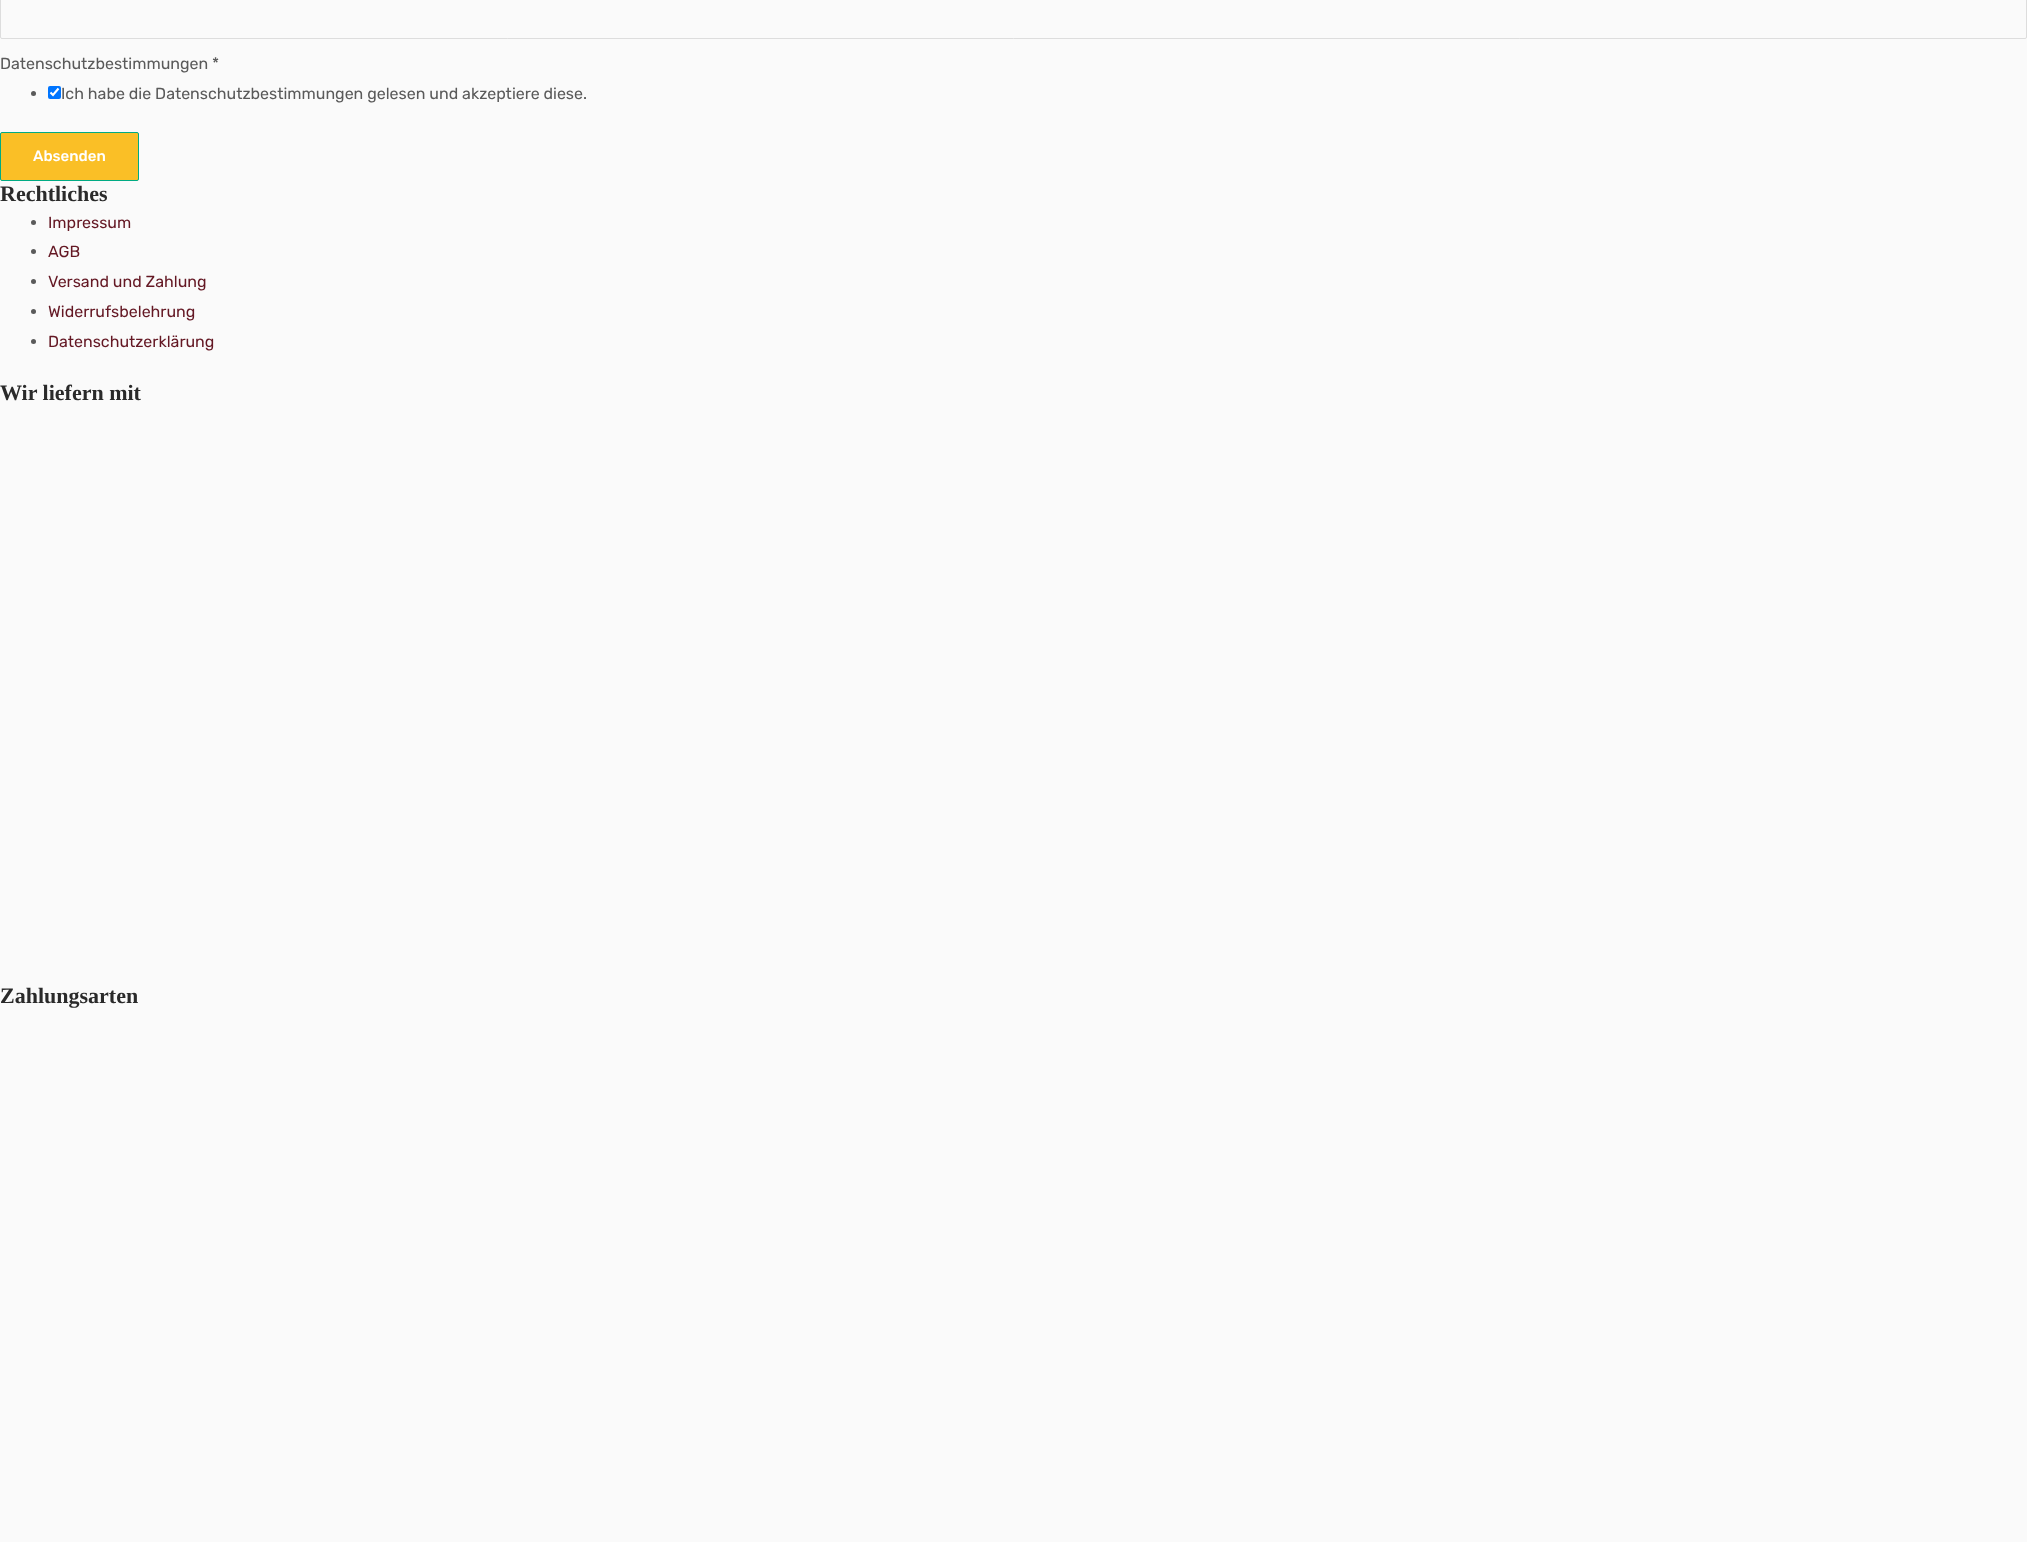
<!DOCTYPE html>
<meta charset="utf-8">
<style>body { margin: 0 } canvas { display: block }</style>
<canvas id="canvas" width="2027" height="1542"></canvas>
<script>
window.onload = function () {
    const canvas = document.getElementById('canvas');
    const context = canvas.getContext('2d');
    context.miterLimit = 4;
    context.fontKerning = 'normal';

    context.fillStyle = 'rgb(250, 250, 250)';
    context.fillRect(0, 0, 2027, 1542);
    context.beginPath();
    context.roundRect(0.5, -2.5, 2026, 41, 1.5);
    context.strokeStyle = 'rgb(221, 221, 221)';
    context.stroke();
    context.fillStyle = 'rgb(90, 90, 90)';
    context.beginPath();
    context.arc(33.5, 93.5, 2.5, 0, 2 * Math.PI);
    context.fill();
    context.fillStyle = 'rgb(0, 117, 255)';
    context.beginPath();
    context.roundRect(48, 86, 13, 13, 2);
    context.fill();
    context.beginPath();
    context.moveTo(50.5, 92.5);
    context.lineTo(53, 95);
    context.lineTo(58.5, 88.5);
    context.strokeStyle = 'rgb(255, 255, 255)';
    context.lineWidth = 2.1;
    context.stroke();
    context.fillStyle = 'rgb(250, 191, 38)';
    context.beginPath();
    context.roundRect(0.5, 132.5, 138, 48, 1.5);
    context.fill();
    context.strokeStyle = 'rgb(0, 171, 132)';
    context.lineWidth = 1;
    context.stroke();
    context.fillStyle = 'rgb(90, 90, 90)';
    context.beginPath();
    context.arc(33.5, 222.5, 2.5, 0, 2 * Math.PI);
    context.fill();
    context.beginPath();
    context.arc(33.5, 251.5, 2.5, 0, 2 * Math.PI);
    context.fill();
    context.beginPath();
    context.arc(33.5, 281.5, 2.5, 0, 2 * Math.PI);
    context.fill();
    context.beginPath();
    context.arc(33.5, 311.5, 2.5, 0, 2 * Math.PI);
    context.fill();
    context.beginPath();
    context.arc(33.5, 341.5, 2.5, 0, 2 * Math.PI);
    context.fill();
    context.font = '16px Rubik';
    context.fillText('Datenschutzbestimmungen *', 0, 69);
    context.fillText('Ich habe die Datenschutzbestimmungen gelesen und akzeptiere diese.', 61, 99);
    context.font = '500 15px Rubik';
    context.fillStyle = 'rgb(255, 255, 255)';
    context.fillText('Absenden', 33, 161);
    context.font = 'bold 22px Liberation Serif';
    context.fillStyle = 'rgb(42, 42, 42)';
    context.fillText('Rechtliches', 0, 201);
    context.font = '16px Rubik';
    context.fillStyle = 'rgb(100, 24, 36)';
    context.fillText('Impressum', 48, 228);
    context.fillText('AGB', 48, 257);
    context.fillText('Versand und Zahlung', 48, 287);
    context.fillText('Widerrufsbelehrung', 48, 317);
    context.fillText('Datenschutzerklärung', 48, 347);
    context.font = 'bold 22px Liberation Serif';
    context.fillStyle = 'rgb(42, 42, 42)';
    context.fillText('Wir liefern mit', 0, 400);
    context.fillText('Zahlungsarten', 0, 1003);
};
</script>
